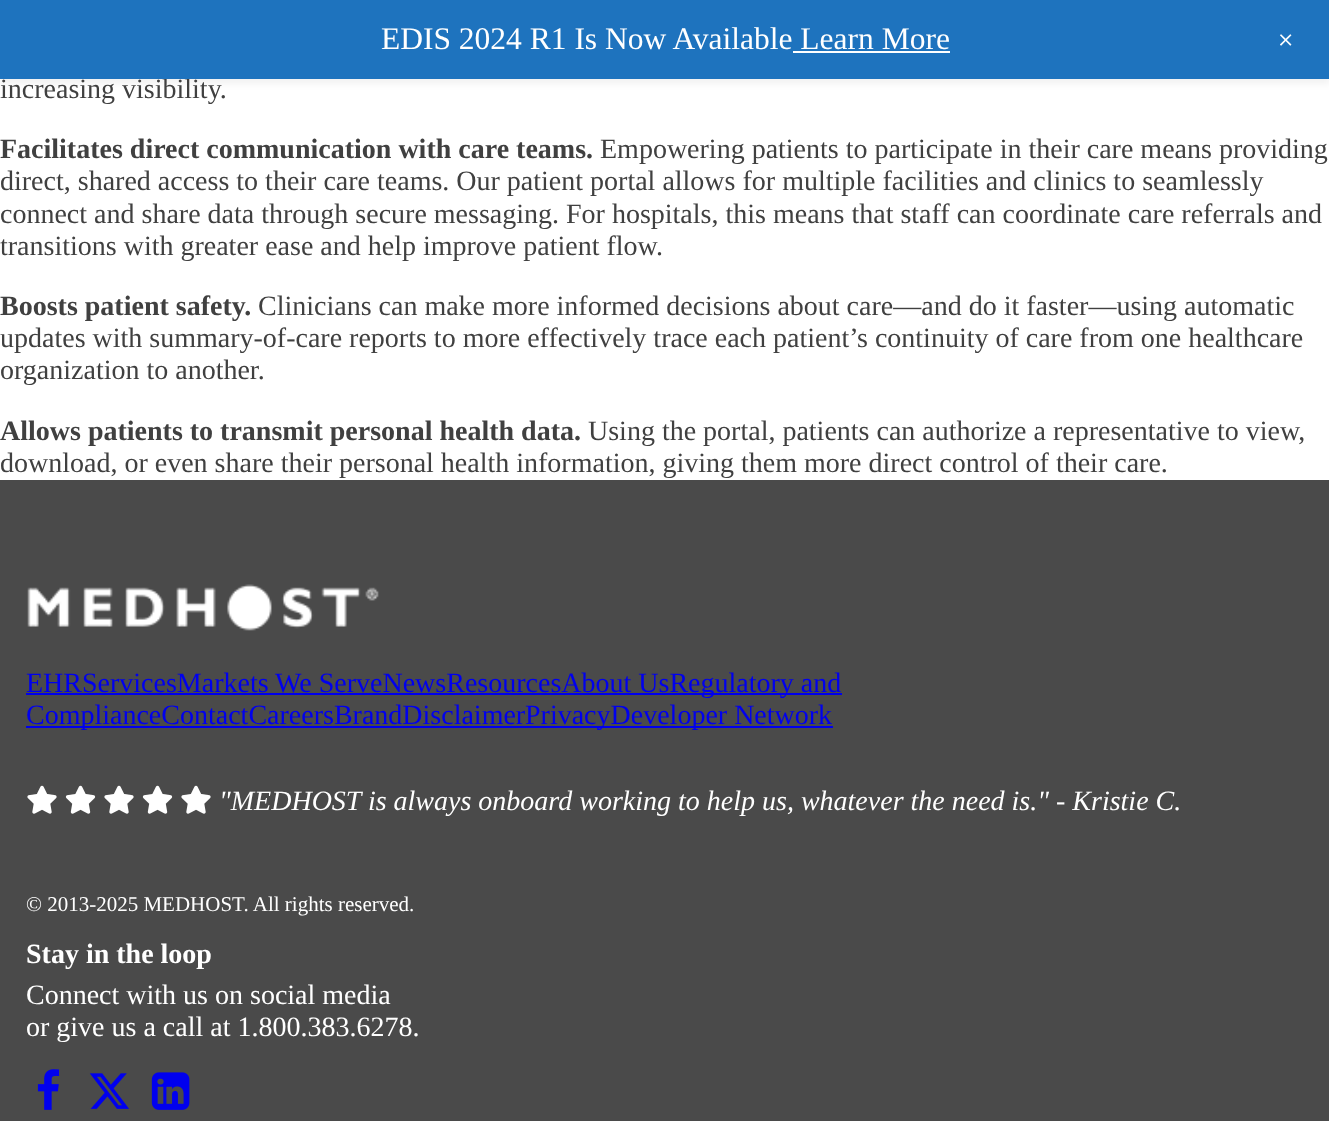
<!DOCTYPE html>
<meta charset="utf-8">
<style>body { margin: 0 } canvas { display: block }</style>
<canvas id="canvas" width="1329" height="1121"></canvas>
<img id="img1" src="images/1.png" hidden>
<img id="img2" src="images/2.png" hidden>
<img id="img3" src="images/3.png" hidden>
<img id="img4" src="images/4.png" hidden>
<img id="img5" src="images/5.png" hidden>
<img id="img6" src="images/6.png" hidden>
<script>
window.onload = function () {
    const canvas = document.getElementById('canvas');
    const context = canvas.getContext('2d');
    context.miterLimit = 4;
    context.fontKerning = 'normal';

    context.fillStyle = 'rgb(255, 255, 255)';
    context.fillRect(0, 0, 1329, 1121);
    context.fillStyle = 'rgba(0, 0, 0, 0.05)';
    context.filter = 'blur(3.5px)';
    context.beginPath();
    context.rect(0, 5, 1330, 79);
    context.fill();
    context.filter = 'none';
    context.fillStyle = 'rgb(74, 74, 74)';
    context.fillRect(0, 480, 1329, 641);
    context.drawImage(document.getElementById('img1'), 27, 584, 352, 47);
    context.fillStyle = 'rgb(0, 0, 238)';
    context.fillRect(26, 693, 816, 2);
    context.fillRect(26, 726, 499, 2);
    context.fillRect(525, 726, 308, 2);
    context.drawImage(document.getElementById('img2'), 27, 785, 30, 29);
    context.drawImage(document.getElementById('img3'), 65, 785, 31, 29);
    context.drawImage(document.getElementById('img2'), 104, 785, 30, 29);
    context.drawImage(document.getElementById('img3'), 142, 785, 31, 29);
    context.drawImage(document.getElementById('img2'), 181, 785, 30, 29);
    context.drawImage(document.getElementById('img4'), 37, 1069, 23, 41);
    context.drawImage(document.getElementById('img5'), 89, 1073, 40, 36);
    context.drawImage(document.getElementById('img6'), 151, 1072, 39, 38);
    context.font = '28px Liberation Serif';
    context.fillStyle = 'rgb(64, 64, 64)';
    context.fillText('increasing visibility.', 0, 98);
    context.fillStyle = 'rgb(30, 115, 190)';
    context.fillRect(0, 0, 1329, 79);
    context.font = '31.5px Liberation Serif';
    context.fillStyle = 'rgb(255, 255, 255)';
    context.save();
    context.translate(1272, 41);
    context.rotate(45 * Math.PI / 180);
    context.fillText('+', 0, 0);
    context.restore();
    context.fillRect(793, 51, 157, 2);
    context.fillText('EDIS 2024 R1 Is Now Available Learn More', 381, 49);
    context.font = 'bold 28px Liberation Serif';
    context.fillStyle = 'rgb(64, 64, 64)';
    context.fillText('Facilitates direct communication with care teams.', 0, 158);
    context.font = '28px Liberation Serif';
    context.fillText('Empowering patients to participate in their care means providing', 600, 158);
    context.fillText('direct, shared access to their care teams. Our patient portal allows for multiple facilities and clinics to seamlessly', 0, 190);
    context.fillText('connect and share data through secure messaging. For hospitals, this means that staff can coordinate care referrals and', 0, 223);
    context.fillText('transitions with greater ease and help improve patient flow.', 0, 255);
    context.font = 'bold 28px Liberation Serif';
    context.fillText('Boosts patient safety.', 0, 315);
    context.font = '28px Liberation Serif';
    context.fillText('Clinicians can make more informed decisions about care—and do it faster—using automatic', 258, 315);
    context.fillText('updates with summary-of-care reports to more effectively trace each patient’s continuity of care from one healthcare', 0, 347);
    context.fillText('organization to another.', 0, 379);
    context.font = 'bold 28px Liberation Serif';
    context.fillText('Allows patients to transmit personal health data.', 0, 440);
    context.font = '28px Liberation Serif';
    context.fillText('Using the portal, patients can authorize a representative to view,', 588, 440);
    context.fillText('download, or even share their personal health information, giving them more direct control of their care.', 0, 472);
    context.fillStyle = 'rgb(0, 0, 238)';
    context.fillText('EHRServicesMarkets We ServeNewsResourcesAbout UsRegulatory and', 26, 692);
    context.fillText('ComplianceContactCareersBrandDisclaimer', 26, 724);
    context.fillText('PrivacyDeveloper Network', 525, 724);
    context.font = 'italic 28px Liberation Serif';
    context.fillStyle = 'rgb(255, 255, 255)';
    context.fillText('"MEDHOST is always onboard working to help us, whatever the need is." - Kristie C.', 219, 810);
    context.font = '21px Liberation Serif';
    context.fillText('© 2013-2025 MEDHOST. All rights reserved.', 26, 911);
    context.font = 'bold 28px Liberation Serif';
    context.fillText('Stay in the loop', 26, 963);
    context.font = '28px Liberation Serif';
    context.fillText('Connect with us on social media', 26, 1004);
    context.fillText('or give us a call at 1.800.383.6278.', 26, 1036);
};
</script>
